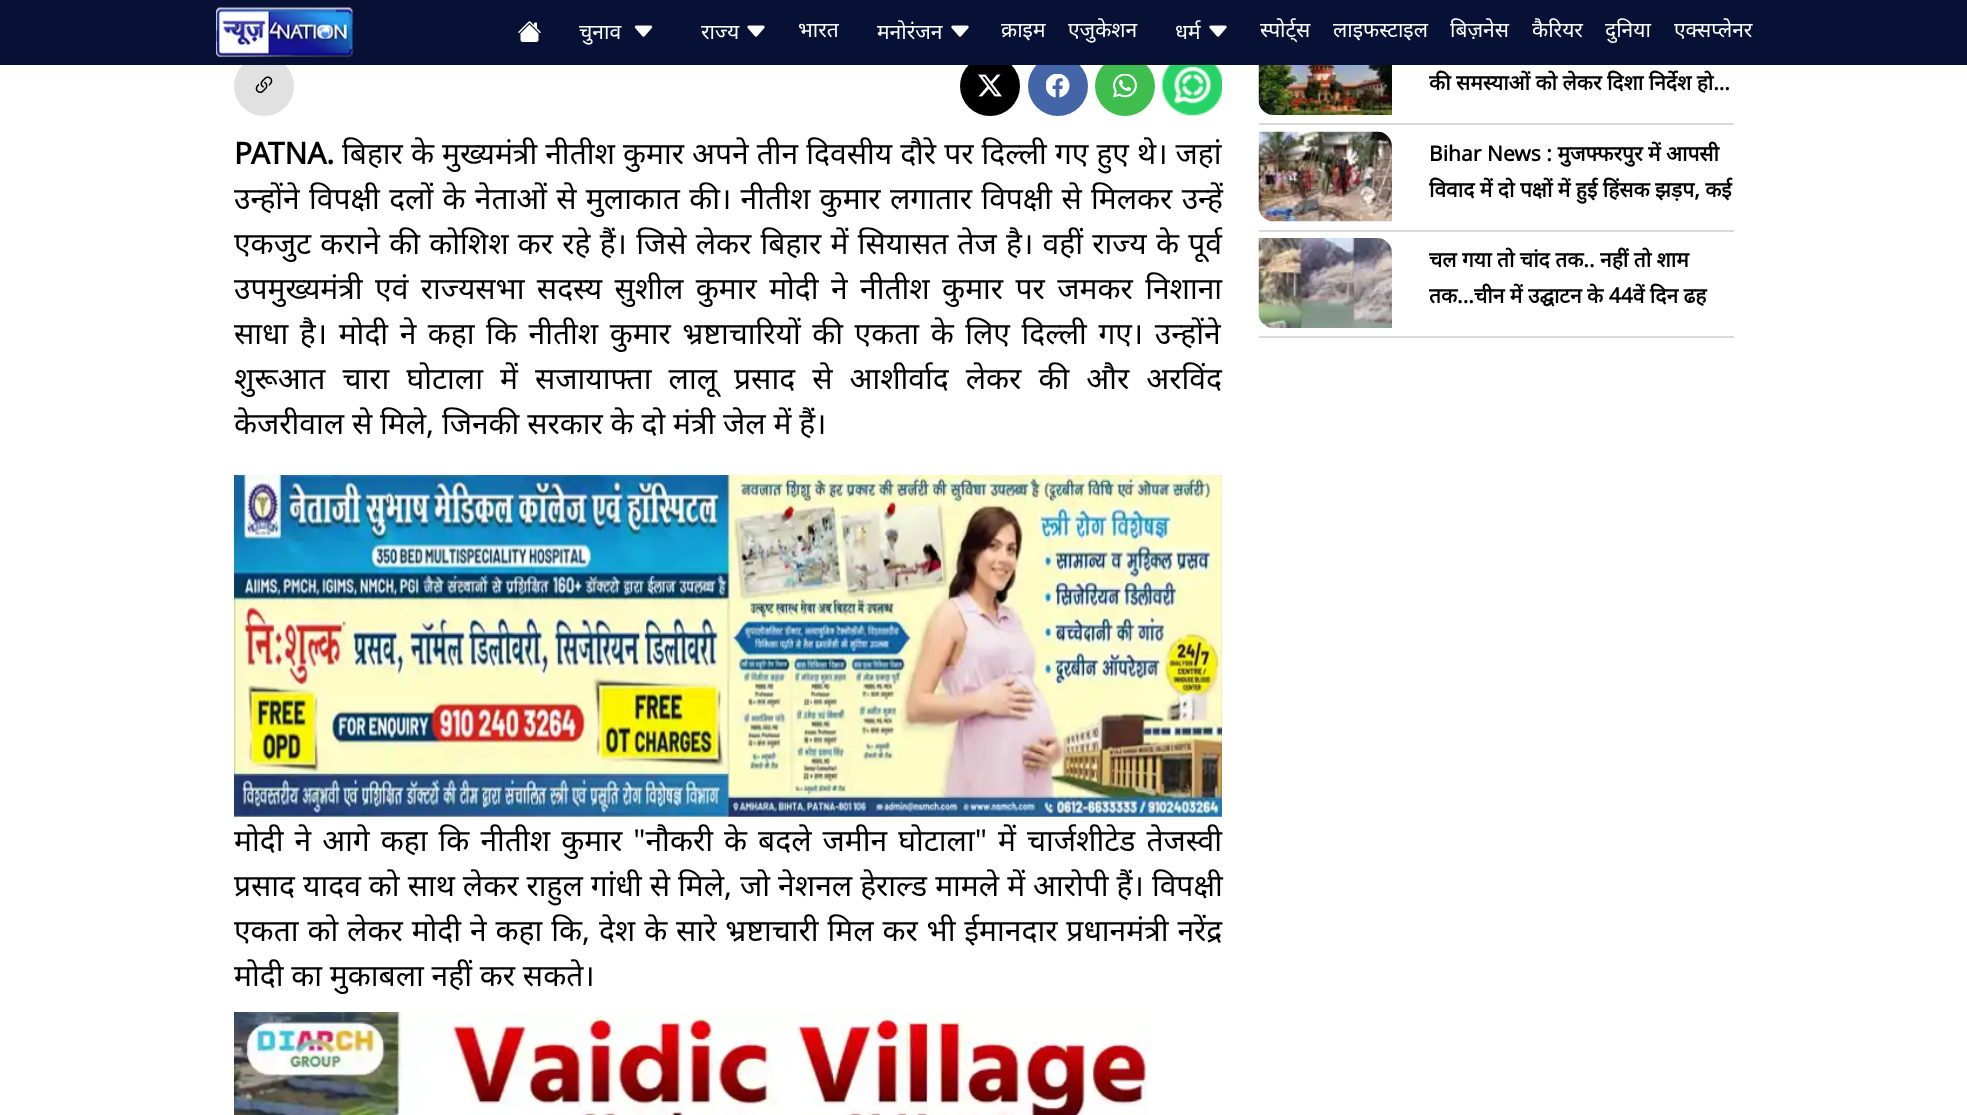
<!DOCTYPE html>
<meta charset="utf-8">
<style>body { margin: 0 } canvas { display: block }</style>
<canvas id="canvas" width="1967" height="1115"></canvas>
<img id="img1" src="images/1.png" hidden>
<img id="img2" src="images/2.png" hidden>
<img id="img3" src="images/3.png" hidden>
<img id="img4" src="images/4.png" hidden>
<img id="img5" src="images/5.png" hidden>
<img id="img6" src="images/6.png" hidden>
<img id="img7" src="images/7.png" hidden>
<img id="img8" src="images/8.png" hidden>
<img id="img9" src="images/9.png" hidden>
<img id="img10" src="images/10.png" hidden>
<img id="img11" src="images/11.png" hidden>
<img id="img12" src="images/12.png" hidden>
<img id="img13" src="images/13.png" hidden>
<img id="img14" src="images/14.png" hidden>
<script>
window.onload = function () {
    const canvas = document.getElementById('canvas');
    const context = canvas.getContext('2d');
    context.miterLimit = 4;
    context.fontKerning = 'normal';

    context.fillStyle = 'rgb(255, 255, 255)';
    context.fillRect(0, 0, 1967, 1115);
    context.fillStyle = 'rgb(225, 225, 225)';
    context.beginPath();
    context.arc(264, 86, 30, 0, 2 * Math.PI);
    context.fill();
    context.fillStyle = 'rgb(0, 0, 0)';
    context.beginPath();
    context.arc(990, 86, 30, 0, 2 * Math.PI);
    context.fill();
    context.fillStyle = 'rgb(69, 101, 169)';
    context.beginPath();
    context.arc(1058, 86, 30, 0, 2 * Math.PI);
    context.fill();
    context.fillStyle = 'rgb(63, 190, 79)';
    context.beginPath();
    context.arc(1125, 86, 30, 0, 2 * Math.PI);
    context.fill();
    context.fillStyle = 'rgb(6, 17, 53)';
    context.fillRect(0, 0, 1967, 65);
    context.drawImage(document.getElementById('img1'), 216, 7, 137, 50);
    context.drawImage(document.getElementById('img2'), 518, 21, 23, 21);
    context.drawImage(document.getElementById('img3'), 634, 25, 19, 12);
    context.drawImage(document.getElementById('img4'), 747, 25, 18, 12);
    context.drawImage(document.getElementById('img4'), 951, 25, 18, 12);
    context.drawImage(document.getElementById('img4'), 1209, 25, 18, 12);
    context.drawImage(document.getElementById('img5'), 255, 76, 18, 18);
    context.drawImage(document.getElementById('img6'), 978, 74, 24, 23);
    context.drawImage(document.getElementById('img7'), 1046, 74, 24, 24);
    context.drawImage(document.getElementById('img8'), 1113, 74, 24, 24);
    context.drawImage(document.getElementById('img9'), 1162, 65, 60, 51);
    context.drawImage(document.getElementById('img10'), 234, 475, 988, 342);
    context.drawImage(document.getElementById('img11'), 234, 1012, 916, 103);
    context.fillStyle = 'rgb(217, 217, 217)';
    context.fillRect(1259, 123, 475, 2);
    context.drawImage(document.getElementById('img12'), 1258, 65, 134, 50);
    context.fillRect(1259, 230, 475, 2);
    context.drawImage(document.getElementById('img13'), 1258, 131, 134, 91);
    context.fillRect(1259, 336, 475, 2);
    context.drawImage(document.getElementById('img14'), 1258, 238, 134, 90);
    context.font = '21px Noto Sans';
    context.fillStyle = 'rgb(255, 255, 255)';
    context.fillText('चुनाव', 579, 39);
    context.fillText('राज्य', 701, 39);
    context.fillText('भारत', 798, 37);
    context.fillText('मनोरंजन', 877, 39);
    context.fillText('क्राइम', 1001, 37);
    context.fillText('एजुकेशन', 1068, 37);
    context.fillText('धर्म', 1175, 39);
    context.fillText('स्पोर्ट्स', 1260, 37);
    context.fillText('लाइफस्टाइल', 1333, 37);
    context.fillText('बिज़नेस', 1450, 37);
    context.fillText('कैरियर', 1532, 37);
    context.fillText('दुनिया', 1605, 37);
    context.fillText('एक्सप्लेनर', 1674, 37);
    context.font = 'bold 30px Noto Sans';
    context.fillStyle = 'rgb(0, 0, 0)';
    context.fillText('PATNA.', 234, 164);
    context.wordSpacing = '0.25px';
    context.font = '30px Noto Sans';
    context.fillText('बिहार के मुख्यमंत्री नीतीश कुमार अपने तीन दिवसीय दौरे पर दिल्ली गए हुए थे। जहां', 342, 164);
    context.wordSpacing = '1.5px';
    context.fillText('उन्होंने विपक्षी दलों के नेताओं से मुलाकात की। नीतीश कुमार लगातार विपक्षी से मिलकर उन्हें', 234, 209);
    context.wordSpacing = '1.4px';
    context.fillText('एकजुट कराने की कोशिश कर रहे हैं। जिसे लेकर बिहार में सियासत तेज है। वहीं राज्य के पूर्व', 234, 254);
    context.wordSpacing = '4.6px';
    context.fillText('उपमुख्यमंत्री एवं राज्यसभा सदस्य सुशील कुमार मोदी ने नीतीश कुमार पर जमकर निशाना', 234, 299);
    context.wordSpacing = '3.75px';
    context.fillText('साधा है। मोदी ने कहा कि नीतीश कुमार भ्रष्टाचारियों की एकता के लिए दिल्ली गए। उन्होंने', 234, 344);
    context.wordSpacing = '9.25px';
    context.fillText('शुरूआत चारा घोटाला में सजायाफ्ता लालू प्रसाद से आशीर्वाद लेकर की और अरविंद', 234, 389);
    context.wordSpacing = '0px';
    context.fillText('केजरीवाल से मिले, जिनकी सरकार के दो मंत्री जेल में हैं।', 234, 434);
    context.wordSpacing = '3.25px';
    context.fillText('मोदी ने आगे कहा कि नीतीश कुमार "नौकरी के बदले जमीन घोटाला" में चार्जशीटेड तेजस्वी', 234, 851);
    context.wordSpacing = '0.2px';
    context.fillText('प्रसाद यादव को साथ लेकर राहुल गांधी से मिले, जो नेशनल हेराल्ड मामले में आरोपी हैं। विपक्षी', 234, 896);
    context.wordSpacing = '1.1px';
    context.fillText('एकता को लेकर मोदी ने कहा कि, देश के सारे भ्रष्टाचारी मिल कर भी ईमानदार प्रधानमंत्री नरेंद्र', 234, 941);
    context.wordSpacing = '0px';
    context.fillText('मोदी का मुकाबला नहीं कर सकते।', 234, 986);
    context.save();
    context.beginPath();
    context.rect(1428, 29, 306, 72);
    context.clip();
    context.font = 'bold 21px Noto Sans';
    context.fillText('की समस्याओं को लेकर दिशा निर्देश हो…', 1429, 90);
    context.restore();
    context.font = 'bold 21px Noto Sans';
    context.fillText('Bihar News : मुजफ्फरपुर में आपसी', 1429, 161);
    context.fillText('विवाद में दो पक्षों में हुई हिंसक झड़प, कई', 1429, 197);
    context.fillText('चल गया तो चांद तक.. नहीं तो शाम', 1429, 267);
    context.fillText('तक...चीन में उद्घाटन के 44वें दिन ढह', 1429, 303);
};
</script>
